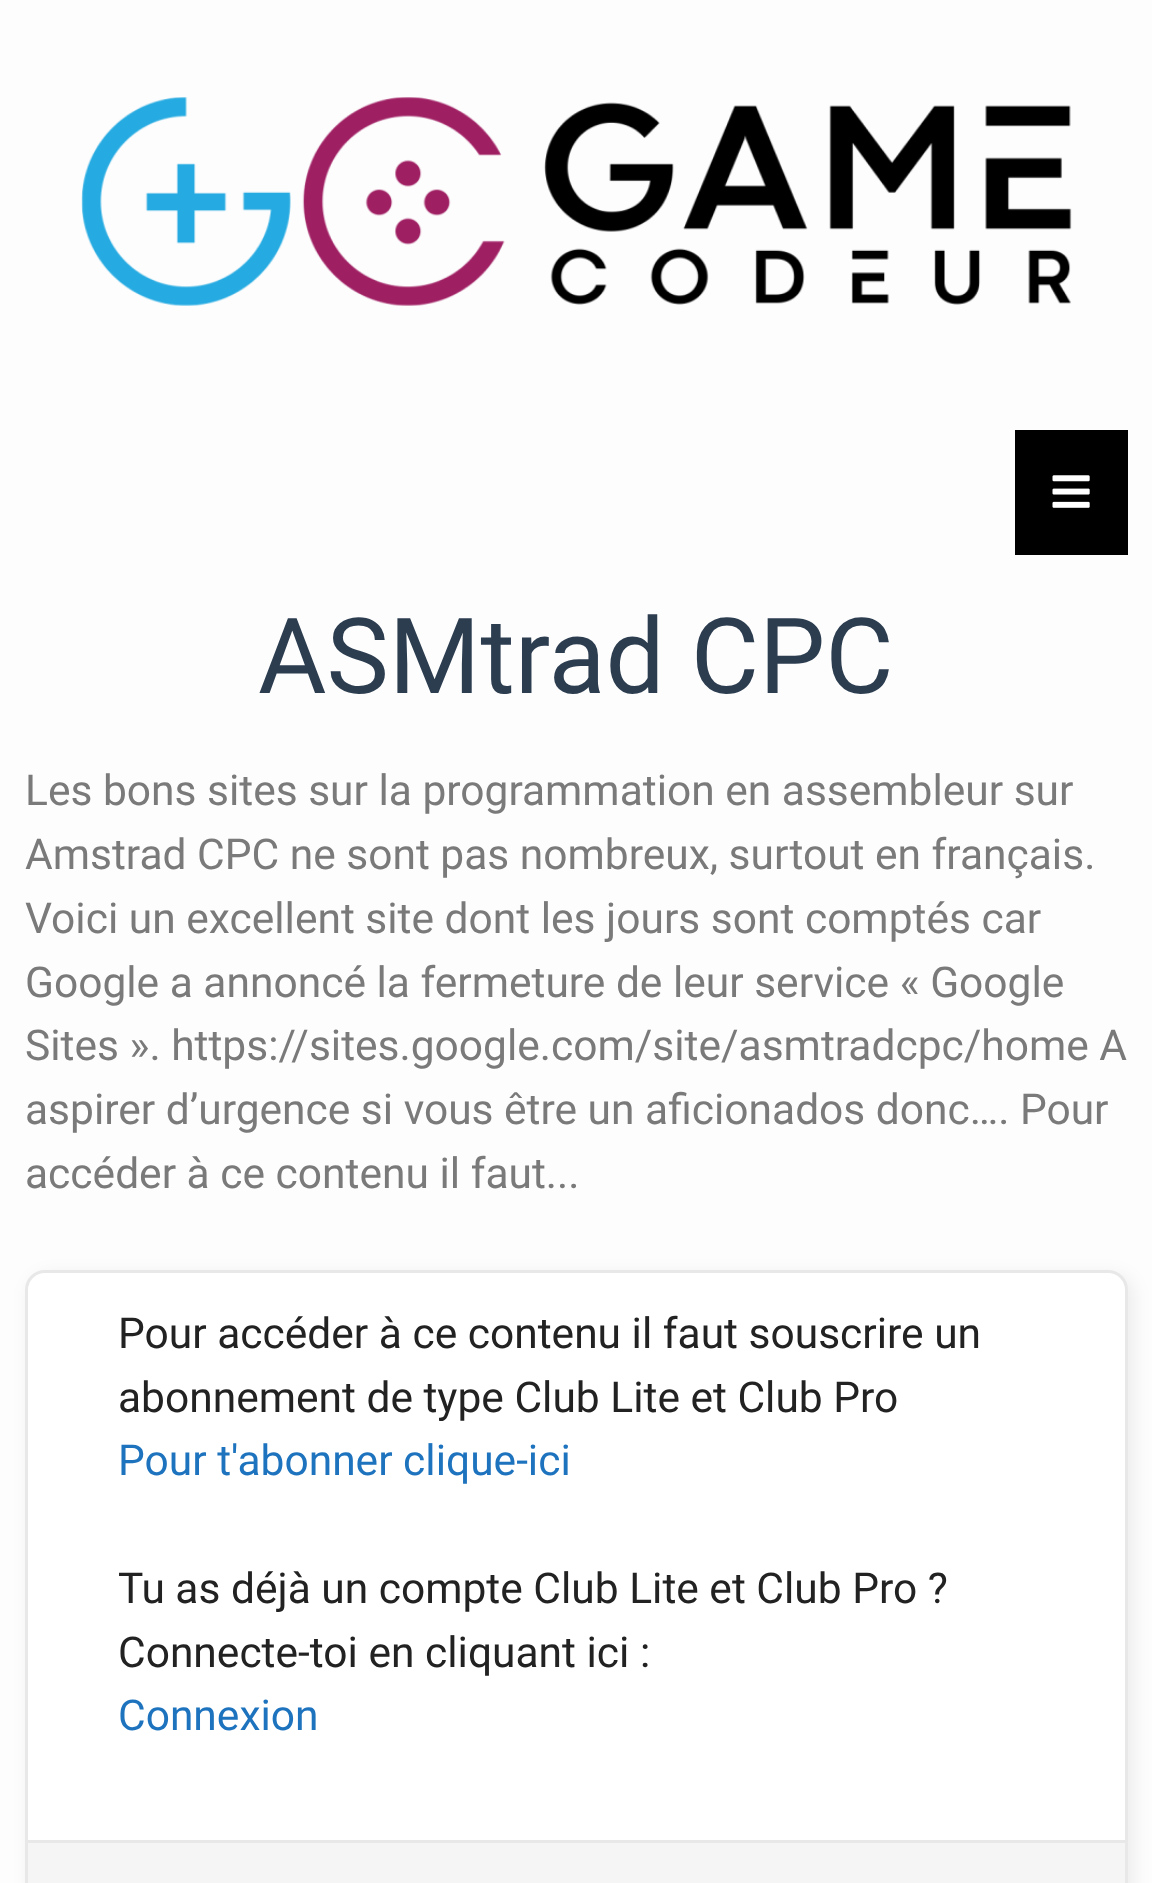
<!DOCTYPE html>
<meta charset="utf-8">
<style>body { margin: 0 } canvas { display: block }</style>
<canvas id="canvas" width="1152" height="1883"></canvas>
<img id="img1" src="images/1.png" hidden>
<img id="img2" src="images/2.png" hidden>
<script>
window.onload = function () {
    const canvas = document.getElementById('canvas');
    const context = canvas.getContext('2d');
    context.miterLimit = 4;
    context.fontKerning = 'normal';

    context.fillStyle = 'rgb(253, 253, 253)';
    context.fillRect(0, 0, 1152, 1883);
    context.drawImage(document.getElementById('img1'), 81, 97, 991, 209);
    context.fillStyle = 'rgb(0, 0, 0)';
    context.fillRect(1015, 430, 113, 125);
    context.drawImage(document.getElementById('img2'), 1052, 475, 38, 33);
    context.fillStyle = 'rgba(0, 0, 0, 0.07)';
    context.filter = 'blur(9px)';
    context.beginPath();
    context.roundRect(30, 1275, 1103, 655, 20);
    context.fill();
    context.filter = 'none';
    context.fillStyle = 'rgb(255, 255, 255)';
    context.beginPath();
    context.roundRect(26.5, 1271.5, 1100, 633, 18.5);
    context.fill();
    context.strokeStyle = 'rgb(232, 232, 232)';
    context.lineWidth = 3;
    context.stroke();
    context.fillStyle = 'rgb(245, 245, 245)';
    context.fillRect(28, 1843, 1097, 40);
    context.fillStyle = 'rgb(232, 232, 232)';
    context.fillRect(28, 1840, 1097, 3);
    context.font = '105px Roboto';
    context.fillStyle = 'rgb(44, 61, 80)';
    context.fillText('ASMtrad CPC', 258, 693);
    context.font = '42.5px Roboto';
    context.fillStyle = 'rgb(122, 122, 122)';
    context.fillText('Les bons sites sur la programmation en assembleur sur', 25, 805);
    context.fillText('Amstrad CPC ne sont pas nombreux, surtout en français.', 25, 869);
    context.fillText('Voici un excellent site dont les jours sont comptés car', 25, 933);
    context.fillText('Google a annoncé la fermeture de leur service « Google', 25, 997);
    context.fillText('Sites ». https://sites.google.com/site/asmtradcpc/home A', 25, 1060);
    context.fillText('aspirer d’urgence si vous être un aficionados donc…. Pour', 25, 1124);
    context.fillText('accéder à ce contenu il faut...', 25, 1188);
    context.fillStyle = 'rgb(34, 34, 34)';
    context.fillText('Pour accéder à ce contenu il faut souscrire un', 118, 1348);
    context.fillText('abonnement de type Club Lite et Club Pro', 118, 1412);
    context.fillStyle = 'rgb(30, 115, 190)';
    context.fillText('Pour t\'abonner clique-ici', 118, 1475);
    context.fillStyle = 'rgb(34, 34, 34)';
    context.fillText('Tu as déjà un compte Club Lite et Club Pro ?', 118, 1603);
    context.fillText('Connecte-toi en cliquant ici :', 118, 1667);
    context.fillStyle = 'rgb(30, 115, 190)';
    context.fillText('Connexion', 118, 1730);
};
</script>
